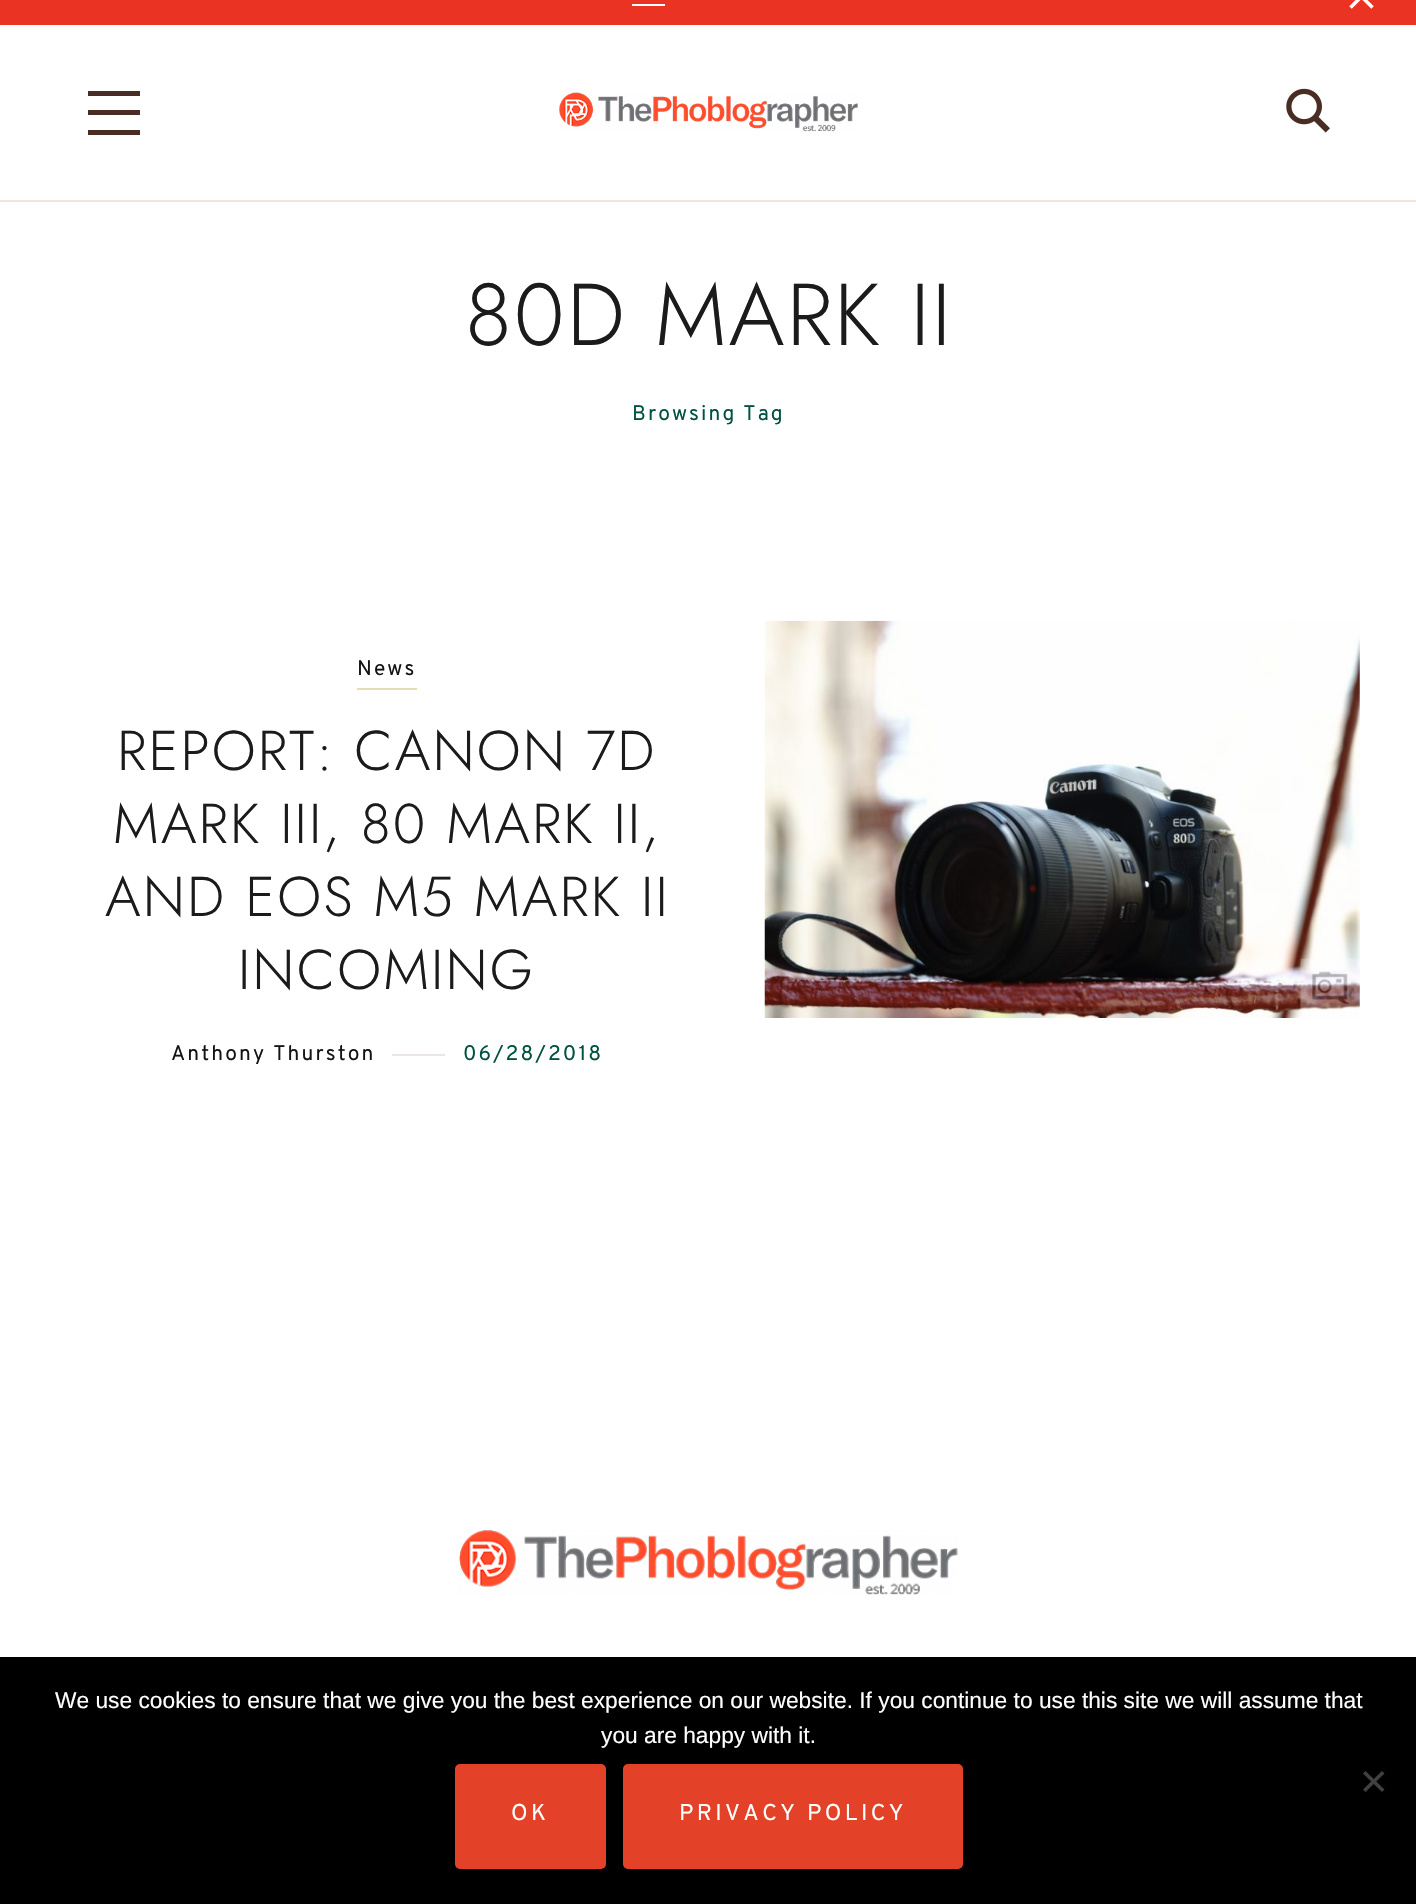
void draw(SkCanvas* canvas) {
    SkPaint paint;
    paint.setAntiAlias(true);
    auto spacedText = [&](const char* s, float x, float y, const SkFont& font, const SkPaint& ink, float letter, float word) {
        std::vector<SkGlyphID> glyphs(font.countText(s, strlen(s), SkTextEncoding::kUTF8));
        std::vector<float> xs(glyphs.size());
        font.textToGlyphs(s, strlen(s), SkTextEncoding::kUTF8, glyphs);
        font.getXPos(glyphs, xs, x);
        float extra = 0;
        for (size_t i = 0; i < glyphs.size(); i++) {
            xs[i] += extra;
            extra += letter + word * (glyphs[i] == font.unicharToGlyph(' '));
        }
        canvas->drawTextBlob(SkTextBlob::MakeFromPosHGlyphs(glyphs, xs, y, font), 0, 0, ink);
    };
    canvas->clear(0xFFFFFFFF);
    paint.setColor(0xFFEB3323);
    canvas->drawRect(SkRect::MakeXYWH(0, 0, 1416, 25), paint);
    paint.setColor(0xFFFFFFFF);
    canvas->drawRect(SkRect::MakeXYWH(632, 4, 33, 2), paint);
    canvas->drawImageRect(SkImages::DeferredFromEncodedData(SkData::MakeFromFileName("img1.png")), SkRect::MakeXYWH(1349, 0, 25, 9), SkSamplingOptions());
    paint.setColor(0xFFEEE6E2);
    canvas->drawRect(SkRect::MakeXYWH(0, 200, 1416, 2), paint);
    paint.setColor(0xFF492C23);
    canvas->drawRect(SkRect::MakeXYWH(88, 91, 52, 5), paint);
    canvas->drawRect(SkRect::MakeXYWH(88, 130, 52, 5), paint);
    canvas->drawRect(SkRect::MakeXYWH(88, 110, 52, 5), paint);
    canvas->drawImageRect(SkImages::DeferredFromEncodedData(SkData::MakeFromFileName("img2.png")), SkRect::MakeXYWH(559, 92, 299, 40), SkSamplingOptions());
    canvas->drawImageRect(SkImages::DeferredFromEncodedData(SkData::MakeFromFileName("img3.png")), SkRect::MakeXYWH(1286, 88, 44, 45), SkSamplingOptions());
    SkFont font1(fontMgr->matchFamilyStyle("Jost", SkFontStyle(300, SkFontStyle::kNormal_Width, SkFontStyle::kUpright_Slant)), 87.5f);
    font1.setSubpixel(true);
    paint.setColor(0xFF1B1B1B);
    spacedText("80D MARK II", 465, 345, font1, paint, 2.1f, 0);
    SkFont font2(fontMgr->matchFamilyStyle("Overpass", SkFontStyle::Normal()), 21);
    font2.setSubpixel(true);
    paint.setColor(0xFF005240);
    spacedText("Browsing Tag", 632, 420, font2, paint, 2.1f, 0);
    paint.setColor(0xFFE5DDB3);
    canvas->drawRect(SkRect::MakeXYWH(357, 688, 60, 2), paint);
    paint.setColor(0xFF121416);
    spacedText("News", 357, 675, font2, paint, 2.1f, 0);
    SkFont font3(fontMgr->matchFamilyStyle("Jost", SkFontStyle(300, SkFontStyle::kNormal_Width, SkFontStyle::kUpright_Slant)), 56);
    font3.setSubpixel(true);
    paint.setColor(0xFF1B1B1B);
    spacedText("REPORT: CANON 7D", 117, 770, font3, paint, 2.1f, 0);
    spacedText("MARK III, 80 MARK II,", 113, 843, font3, paint, 2.1f, 0);
    spacedText("AND EOS M5 MARK II", 105, 916, font3, paint, 2.1f, 0);
    spacedText("INCOMING", 238, 989, font3, paint, 2.1f, 0);
    paint.setColor(0xFF121416);
    spacedText("Anthony Thurston", 171, 1060, font2, paint, 2.1f, 0);
    paint.setColor(0xFFEEE6E2);
    canvas->drawRect(SkRect::MakeXYWH(392, 1054, 53, 2), paint);
    paint.setColor(0xFF005240);
    spacedText("06/28/2018", 463, 1060, font2, paint, 2.1f, 0);
    canvas->drawImageRect(SkImages::DeferredFromEncodedData(SkData::MakeFromFileName("img4.png")), SkRect::MakeXYWH(764, 620, 596, 398), SkSamplingOptions());
    canvas->drawImageRect(SkImages::DeferredFromEncodedData(SkData::MakeFromFileName("img5.png")), SkRect::MakeXYWH(458, 1530, 500, 65), SkSamplingOptions());
    paint.setColor(0xFF000000);
    canvas->drawRect(SkRect::MakeXYWH(0, 1657, 1416, 247), paint);
    SkFont font4(fontMgr->matchFamilyStyle("Liberation Sans", SkFontStyle::Normal()), 22.75f);
    font4.setSubpixel(true);
    paint.setColor(0xFFFFFFFF);
    canvas->drawString("We use cookies to ensure that we give you the best experience on our website. If you continue to use this site we will assume that", 55, 1708, font4, paint);
    canvas->drawString("you are happy with it.", 601, 1743, font4, paint);
    paint.setColor(0xFF404040);
    canvas->drawPath(SkPathBuilder().moveTo(1382, 1771).lineTo(1384.5f, 1773.5f).lineTo(1365.5f, 1792).lineTo(1363, 1789.5f).close().detach(), paint);
    canvas->drawPath(SkPathBuilder().moveTo(1363, 1773.5f).lineTo(1365.5f, 1771).lineTo(1384.5f, 1789.5f).lineTo(1382, 1792).close().detach(), paint);
    paint.setColor(0xFFE34228);
    canvas->drawRoundRect(SkRect::MakeXYWH(455, 1764, 151, 105), 5, 5, paint);
    SkFont font5(fontMgr->matchFamilyStyle("Overpass", SkFontStyle::Normal()), 22.75f);
    font5.setSubpixel(true);
    paint.setColor(0xFFFFFFFF);
    spacedText("OK", 511, 1820, font5, paint, 3.4f, 0);
    paint.setColor(0xFFE34228);
    canvas->drawRoundRect(SkRect::MakeXYWH(623, 1764, 340, 105), 5, 5, paint);
    paint.setColor(0xFFFFFFFF);
    spacedText("PRIVACY POLICY", 679, 1820, font5, paint, 3.4f, 0);
}
